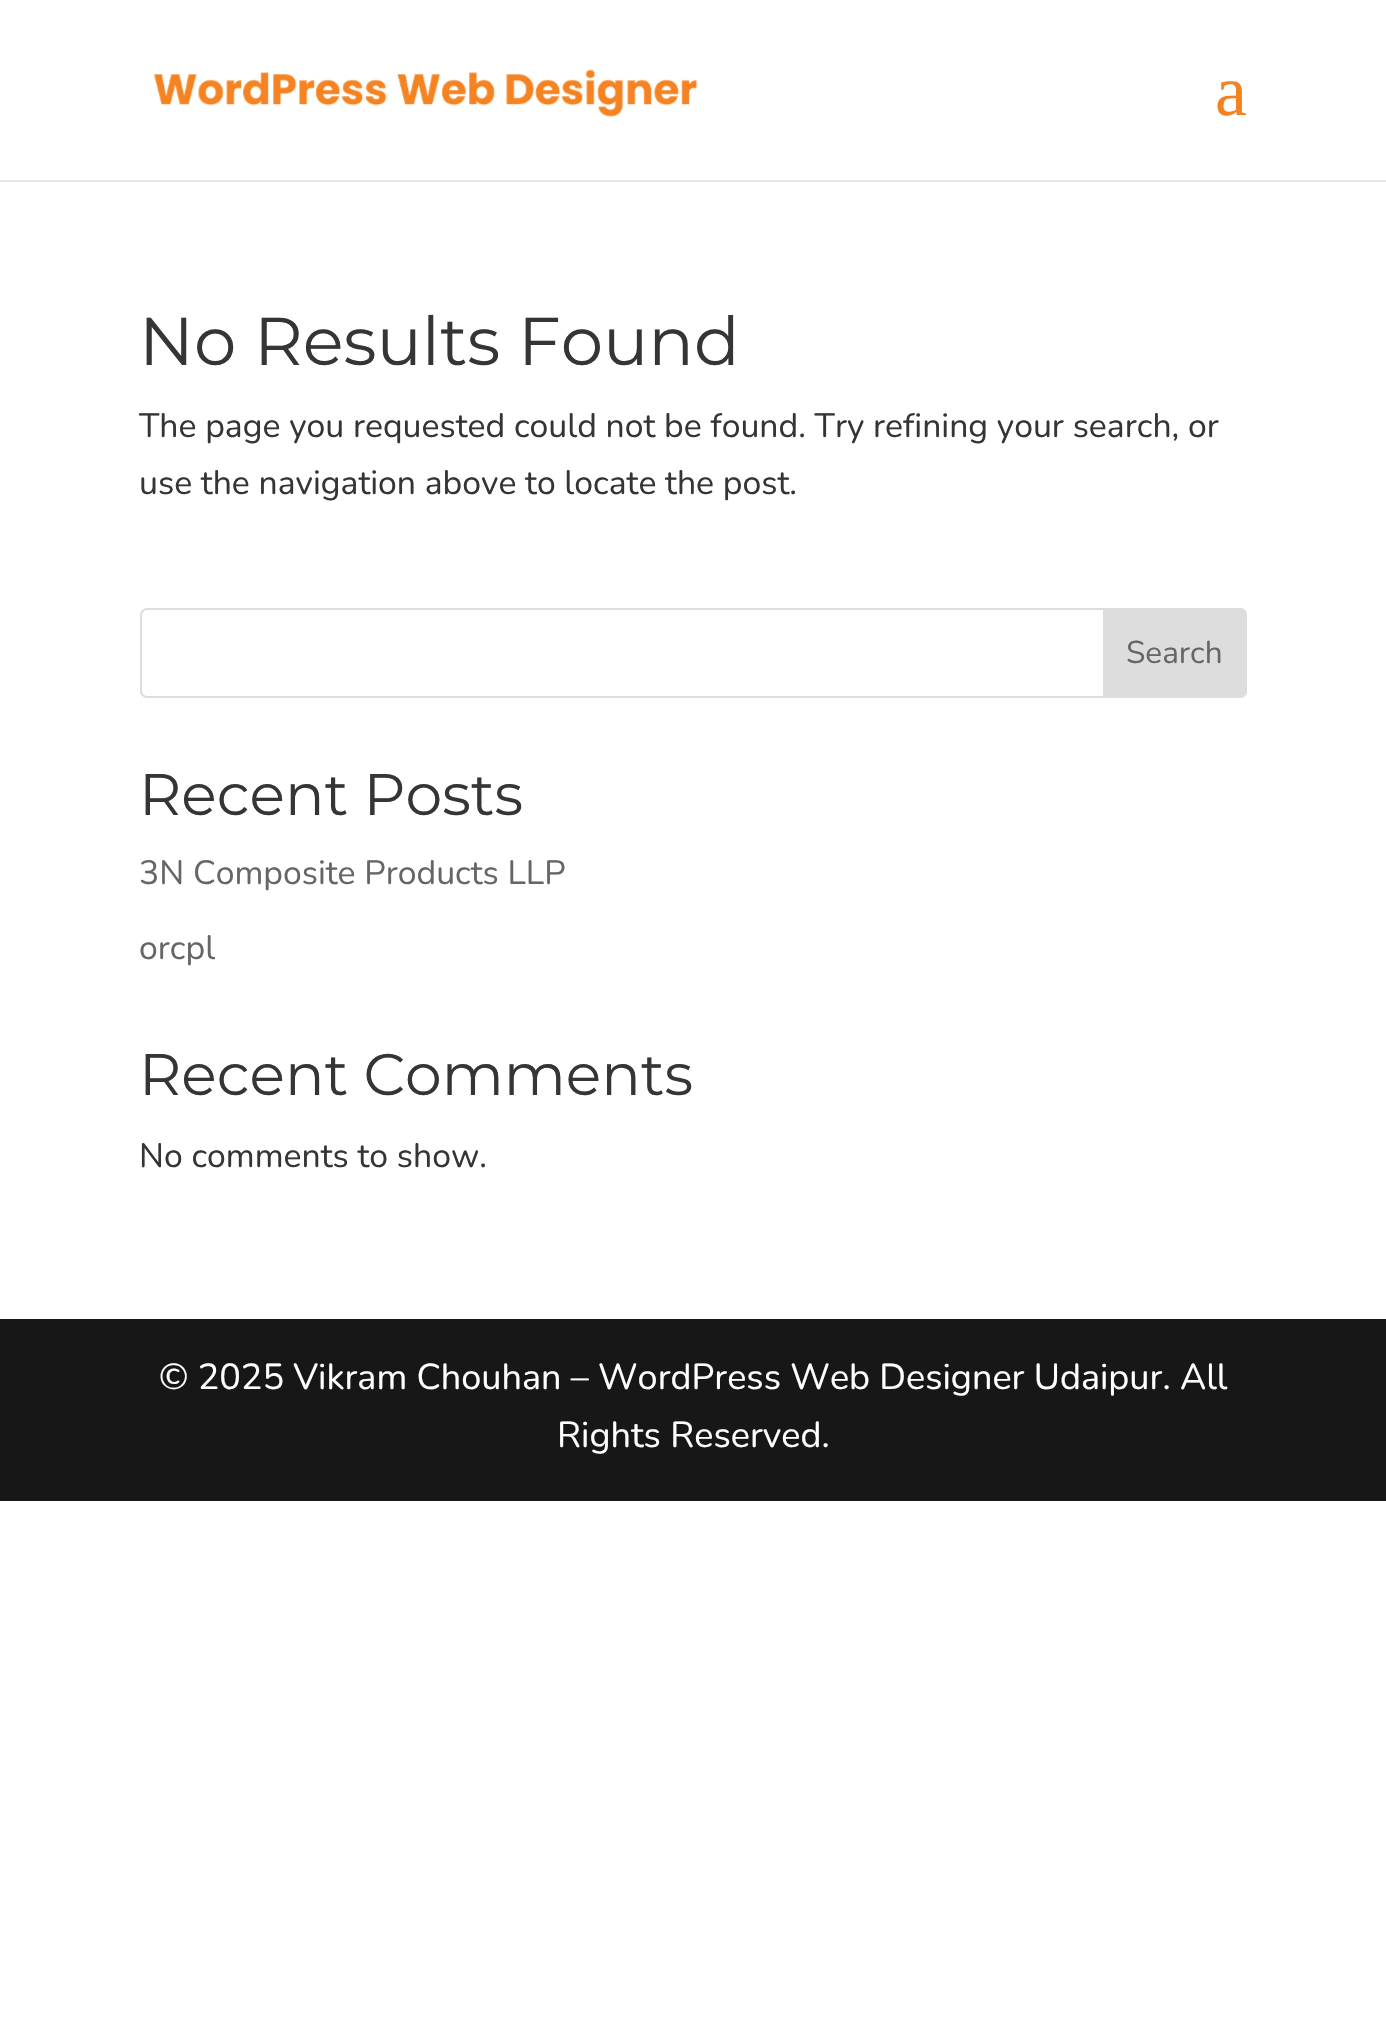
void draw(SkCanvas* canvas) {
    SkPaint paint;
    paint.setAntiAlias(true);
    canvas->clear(0xFFFFFFFF);
    paint.setColor(0xFFE6E6E6);
    canvas->drawRect(SkRect::MakeXYWH(0, 180, 1386, 2), paint);
    canvas->drawImageRect(SkImages::DeferredFromEncodedData(SkData::MakeFromFileName("img1.png")), SkRect::MakeXYWH(154, 69, 544, 48), SkSamplingOptions());
    SkFont font1(fontMgr->matchFamilyStyle("Liberation Serif", SkFontStyle::Normal()), 72);
    font1.setSubpixel(true);
    paint.setColor(0xFFF58220);
    canvas->drawString("a", 1215, 115, font1, paint);
    SkFont font2(fontMgr->matchFamilyStyle("Montserrat", SkFontStyle::Normal()), 67.5f);
    font2.setSubpixel(true);
    paint.setColor(0xFF353535);
    canvas->drawString("No Results Found", 139, 365, font2, paint);
    SkFont font3(fontMgr->matchFamilyStyle("Nunito", SkFontStyle::Normal()), 33.75f);
    font3.setSubpixel(true);
    canvas->drawString("The page you requested could not be found. Try refining your search, or", 139, 437, font3, paint);
    canvas->drawString("use the navigation above to locate the post.", 139, 494, font3, paint);
    paint.setStyle(SkPaint::kStroke_Style);
    paint.setStrokeWidth(2);
    paint.setColor(0xFFDDDDDD);
    canvas->drawRoundRect(SkRect::MakeXYWH(141, 609, 1105, 88), 6, 6, paint);
    paint.setStyle(SkPaint::kFill_Style);
    canvas->drawPath(SkPathBuilder().moveTo(1104, 609).lineTo(1240, 609).cubicTo(1243.5f, 609, 1246, 611.5f, 1246, 615).lineTo(1246, 691).cubicTo(1246, 694.5f, 1243.5f, 697, 1240, 697).lineTo(1104, 697).close().detach(), paint);
    paint.setStyle(SkPaint::kStroke_Style);
    canvas->drawPath(SkPathBuilder().moveTo(1104, 609).lineTo(1240, 609).cubicTo(1243.5f, 609, 1246, 611.5f, 1246, 615).lineTo(1246, 691).cubicTo(1246, 694.5f, 1243.5f, 697, 1240, 697).lineTo(1104, 697).close().detach(), paint);
    SkFont font4(fontMgr->matchFamilyStyle("Nunito", SkFontStyle::Normal()), 31.5f);
    font4.setSubpixel(true);
    paint.setStyle(SkPaint::kFill_Style);
    paint.setColor(0xFF666666);
    canvas->drawString("Search", 1126, 663, font4, paint);
    SkFont font5(fontMgr->matchFamilyStyle("Montserrat", SkFontStyle::Normal()), 58.5f);
    font5.setSubpixel(true);
    paint.setColor(0xFF353535);
    canvas->drawString("Recent Posts", 139, 815, font5, paint);
    paint.setColor(0xFF666666);
    canvas->drawString("3N Composite Products LLP", 139, 884, font3, paint);
    canvas->drawString("orcpl", 139, 959, font3, paint);
    paint.setColor(0xFF353535);
    canvas->drawString("Recent Comments", 139, 1095, font5, paint);
    canvas->drawString("No comments to show.", 139, 1167, font3, paint);
    paint.setColor(0xFF171717);
    canvas->drawRect(SkRect::MakeXYWH(0, 1319, 1386, 182), paint);
    SkFont font6(fontMgr->matchFamilyStyle("Nunito", SkFontStyle::Normal()), 36);
    font6.setSubpixel(true);
    paint.setColor(0xFFFFFFFF);
    canvas->drawString("© 2025 Vikram Chouhan – WordPress Web Designer Udaipur. All", 159, 1389, font6, paint);
    canvas->drawString("Rights Reserved.", 557, 1447, font6, paint);
}
